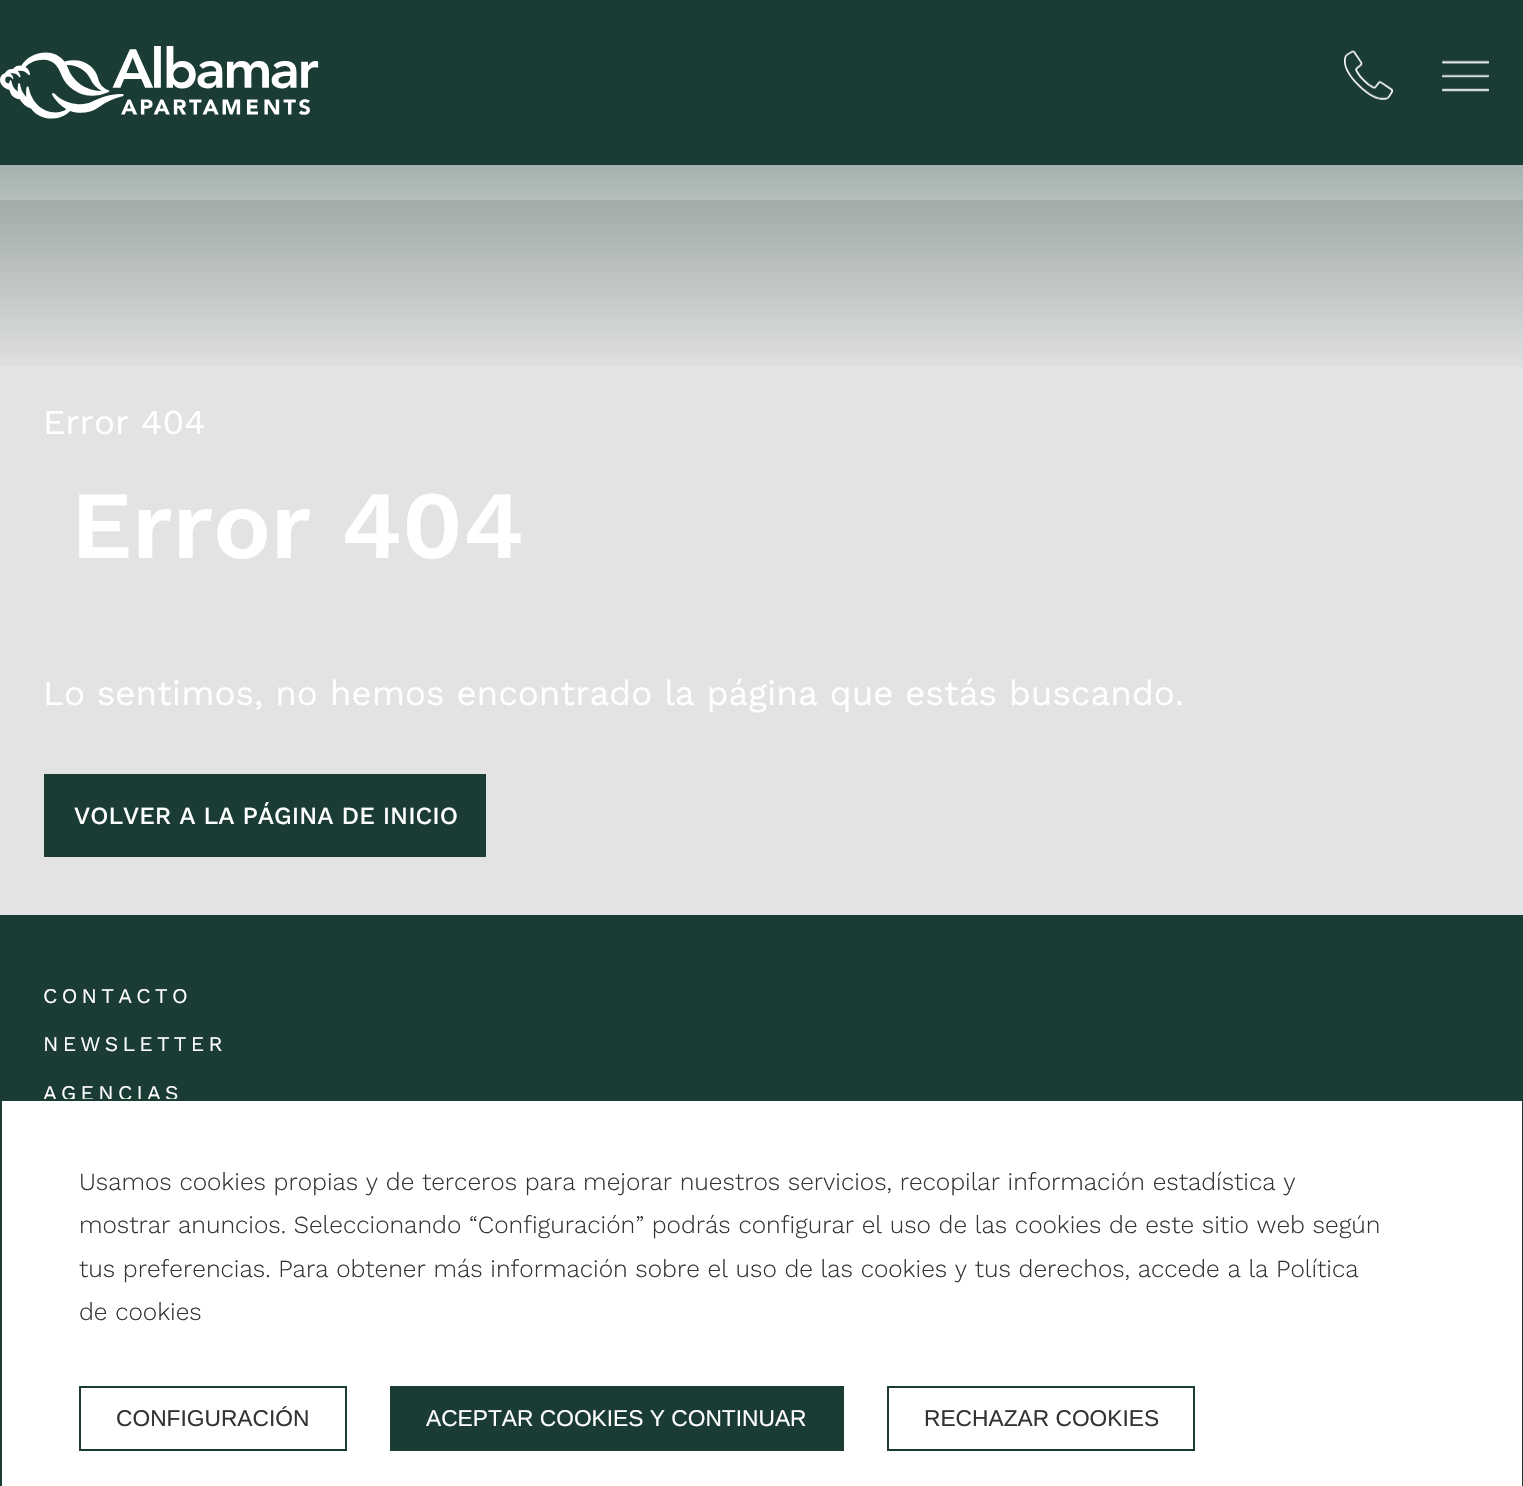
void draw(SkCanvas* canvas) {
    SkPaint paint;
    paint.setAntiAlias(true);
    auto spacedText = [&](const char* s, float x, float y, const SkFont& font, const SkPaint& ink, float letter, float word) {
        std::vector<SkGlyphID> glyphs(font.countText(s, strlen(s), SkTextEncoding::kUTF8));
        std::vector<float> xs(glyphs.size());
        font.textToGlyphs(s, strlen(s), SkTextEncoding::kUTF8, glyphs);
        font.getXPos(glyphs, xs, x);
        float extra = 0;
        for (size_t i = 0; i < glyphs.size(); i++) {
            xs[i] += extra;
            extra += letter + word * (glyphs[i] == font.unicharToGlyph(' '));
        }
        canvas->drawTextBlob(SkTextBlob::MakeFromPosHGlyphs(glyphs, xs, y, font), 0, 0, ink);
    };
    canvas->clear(0xFFFFFFFF);
    paint.setColor(0xFF1A3C34);
    canvas->drawRect(SkRect::MakeXYWH(0, 0, 1523, 165), paint);
    canvas->drawImageRect(SkImages::DeferredFromEncodedData(SkData::MakeFromFileName("img1.png")), SkRect::MakeXYWH(0, 46, 319, 73), SkSamplingOptions());
    canvas->drawImageRect(SkImages::DeferredFromEncodedData(SkData::MakeFromFileName("img2.png")), SkRect::MakeXYWH(1344, 50, 49, 50), SkSamplingOptions());
    canvas->drawImageRect(SkImages::DeferredFromEncodedData(SkData::MakeFromFileName("img3.png")), SkRect::MakeXYWH(1442, 60, 47, 32), SkSamplingOptions());
    paint.setColor(0xFFE3E3E3);
    canvas->drawRect(SkRect::MakeXYWH(0, 200, 1523, 715), paint);
    {
        const SkColor colors[] = {0xB31A3C34, 0x001A3C34};
        const float stops[] = {0, 1};
        const SkPoint ends[] = {{762, 0}, {762, 378}};
        paint.setShader(SkGradientShader::MakeLinear(ends, colors, stops, 2, SkTileMode::kClamp));
        paint.setAlpha(255);
    }
    canvas->drawRect(SkRect::MakeXYWH(0, 165, 1523, 201), paint);
    SkFont font1(fontMgr->matchFamilyStyle("Work Sans", SkFontStyle::Normal()), 35);
    font1.setSubpixel(true);
    paint.setShader(nullptr);
    paint.setColor(0xFFFFFFFF);
    canvas->drawString("Error 404", 43, 434, font1, paint);
    SkFont font2(fontMgr->matchFamilyStyle("Work Sans", SkFontStyle(600, SkFontStyle::kNormal_Width, SkFontStyle::kUpright_Slant)), 96.25f);
    font2.setSubpixel(true);
    canvas->drawString("Error 404", 71, 558, font2, paint);
    canvas->drawString("Lo sentimos, no hemos encontrado la página que estás buscando.", 43, 705, font1, paint);
    paint.setColor(0xFF1A3C34);
    canvas->drawRoundRect(SkRect::MakeXYWH(43, 773, 444, 85), 1, 1, paint);
    paint.setStyle(SkPaint::kStroke_Style);
    paint.setStrokeWidth(2);
    paint.setColor(0xFFE3E3E3);
    canvas->drawRoundRect(SkRect::MakeXYWH(43, 773, 444, 85), 1, 1, paint);
    SkFont font3(fontMgr->matchFamilyStyle("Work Sans", SkFontStyle(500, SkFontStyle::kNormal_Width, SkFontStyle::kUpright_Slant)), 24.5f);
    font3.setSubpixel(true);
    paint.setStyle(SkPaint::kFill_Style);
    paint.setColor(0xFFFFFFFF);
    canvas->drawString("VOLVER A LA PÁGINA DE INICIO", 74, 824, font3, paint);
    paint.setColor(0xFF1A3C34);
    canvas->drawRect(SkRect::MakeXYWH(0, 915, 1523, 184), paint);
    SkFont font4(fontMgr->matchFamilyStyle("Work Sans", SkFontStyle::Normal()), 21);
    font4.setSubpixel(true);
    paint.setColor(0xFFFFFFFF);
    spacedText("CONTACTO", 43, 1003, font4, paint, 4.25f, 0);
    spacedText("NEWSLETTER", 43, 1051, font4, paint, 4.25f, 0);
    spacedText("AGENCIAS", 43, 1100, font4, paint, 4.25f, 0);
    paint.setStyle(SkPaint::kStroke_Style);
    paint.setColor(0xFF1A3C34);
    canvas->drawRect(SkRect::MakeXYWH(1, 1100, 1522, 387), paint);
    SkFont font5(fontMgr->matchFamilyStyle("Work Sans", SkFontStyle(300, SkFontStyle::kNormal_Width, SkFontStyle::kUpright_Slant)), 24.5f);
    font5.setSubpixel(true);
    paint.setStyle(SkPaint::kFill_Style);
    paint.setColor(0xFF333333);
    canvas->drawString("Usamos cookies propias y de terceros para mejorar nuestros servicios, recopilar información estadística y", 79, 1190, font5, paint);
    canvas->drawString("mostrar anuncios. Seleccionando “Configuración” podrás configurar el uso de las cookies de este sitio web según", 79, 1233, font5, paint);
    canvas->drawString("tus preferencias. Para obtener más información sobre el uso de las cookies y tus derechos, accede a la Política", 79, 1277, font5, paint);
    canvas->drawString("de cookies", 79, 1320, font5, paint);
    paint.setStyle(SkPaint::kStroke_Style);
    paint.setColor(0xFF1A3C34);
    canvas->drawRect(SkRect::MakeXYWH(80, 1387, 266, 63), paint);
    SkFont font6(fontMgr->matchFamilyStyle("Liberation Sans", SkFontStyle::Normal()), 22.75f);
    font6.setSubpixel(true);
    paint.setStyle(SkPaint::kFill_Style);
    paint.setColor(0xFF333333);
    canvas->drawString("CONFIGURACIÓN", 116, 1426, font6, paint);
    paint.setColor(0xFF1A3C34);
    canvas->drawRect(SkRect::MakeXYWH(390, 1386, 454, 65), paint);
    paint.setColor(0xFFFFFFFF);
    canvas->drawString("ACEPTAR COOKIES Y CONTINUAR", 426, 1426, font6, paint);
    paint.setStyle(SkPaint::kStroke_Style);
    paint.setColor(0xFF1A3C34);
    canvas->drawRect(SkRect::MakeXYWH(888, 1387, 306, 63), paint);
    paint.setStyle(SkPaint::kFill_Style);
    paint.setColor(0xFF333333);
    canvas->drawString("RECHAZAR COOKIES", 924, 1426, font6, paint);
}
